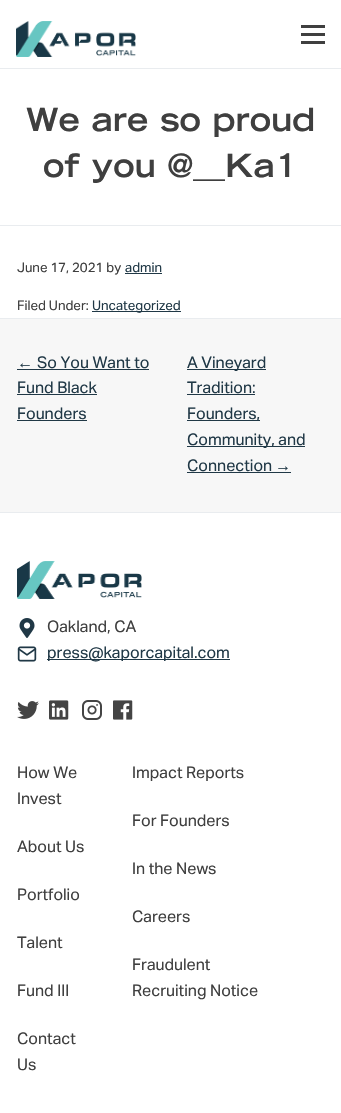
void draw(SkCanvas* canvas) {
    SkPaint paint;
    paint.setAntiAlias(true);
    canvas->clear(0xFFFFFFFF);
    paint.setColor(0xFFE9ECEF);
    canvas->drawRect(SkRect::MakeXYWH(0, 68, 341, 1), paint);
    canvas->drawImageRect(SkImages::DeferredFromEncodedData(SkData::MakeFromFileName("img1.png")), SkRect::MakeXYWH(16, 21, 120, 36), SkSamplingOptions());
    paint.setColor(0xFF3F3F3F);
    canvas->drawRect(SkRect::MakeXYWH(301, 33, 24, 3), paint);
    canvas->drawRect(SkRect::MakeXYWH(301, 25, 24, 3), paint);
    canvas->drawRect(SkRect::MakeXYWH(301, 41, 24, 3), paint);
    paint.setColor(0xFFE9ECEF);
    canvas->drawRect(SkRect::MakeXYWH(0, 225, 341, 1), paint);
    SkFont font1(fontMgr->matchFamilyStyle("Trade Gothic", SkFontStyle::Bold()), 32);
    font1.setSubpixel(true);
    paint.setColor(0xFF3F3F3F);
    canvas->drawString("We are so proud", 26, 131, font1, paint);
    canvas->drawString("of you @__Ka1", 43, 177, font1, paint);
    SkFont font2(fontMgr->matchFamilyStyle("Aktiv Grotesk", SkFontStyle::Normal()), 13.25f);
    font2.setSubpixel(true);
    canvas->drawString("June 17, 2021 by", 17, 272, font2, paint);
    paint.setColor(0xFF203846);
    canvas->drawString("admin", 125, 272, font2, paint);
    canvas->drawRect(SkRect::MakeXYWH(125, 273, 37, 1), paint);
    paint.setColor(0xFF3F3F3F);
    canvas->drawString("Filed Under:", 17, 310, font2, paint);
    paint.setColor(0xFF203846);
    canvas->drawRect(SkRect::MakeXYWH(92, 311, 89, 1), paint);
    canvas->drawString("Uncategorized", 92, 310, font2, paint);
    paint.setColor(0xFFF7F7F7);
    canvas->drawRect(SkRect::MakeXYWH(0, 319, 341, 193), paint);
    paint.setColor(0xFFE9ECEF);
    canvas->drawRect(SkRect::MakeXYWH(0, 318, 341, 1), paint);
    SkFont font3(fontMgr->matchFamilyStyle("Liberation Serif", SkFontStyle::Normal()), 16);
    font3.setSubpixel(true);
    paint.setColor(0xFF203846);
    canvas->drawString("←", 17, 368, font3, paint);
    canvas->drawRect(SkRect::MakeXYWH(17, 369, 132, 1), paint);
    SkFont font4(fontMgr->matchFamilyStyle("Aktiv Grotesk", SkFontStyle::Normal()), 16);
    font4.setSubpixel(true);
    canvas->drawString("So You Want to", 37, 368, font4, paint);
    canvas->drawString("Fund Black", 17, 393, font4, paint);
    canvas->drawRect(SkRect::MakeXYWH(17, 394, 80, 1), paint);
    canvas->drawString("Founders", 17, 419, font4, paint);
    canvas->drawRect(SkRect::MakeXYWH(17, 420, 70, 1), paint);
    canvas->drawRect(SkRect::MakeXYWH(187, 369, 79, 1), paint);
    canvas->drawString("A Vineyard", 187, 368, font4, paint);
    canvas->drawString("Tradition:", 187, 393, font4, paint);
    canvas->drawRect(SkRect::MakeXYWH(187, 394, 68, 1), paint);
    canvas->drawRect(SkRect::MakeXYWH(187, 420, 73, 1), paint);
    canvas->drawString("Founders,", 187, 419, font4, paint);
    canvas->drawRect(SkRect::MakeXYWH(187, 446, 118, 1), paint);
    canvas->drawString("Community, and", 187, 445, font4, paint);
    canvas->drawString("Connection", 187, 471, font4, paint);
    canvas->drawString("→", 275, 471, font3, paint);
    canvas->drawRect(SkRect::MakeXYWH(187, 472, 104, 1), paint);
    paint.setColor(0xFFE9ECEF);
    canvas->drawRect(SkRect::MakeXYWH(0, 512, 341, 1), paint);
    canvas->drawImageRect(SkImages::DeferredFromEncodedData(SkData::MakeFromFileName("img2.png")), SkRect::MakeXYWH(17, 561, 125, 38), SkSamplingOptions());
    canvas->drawImageRect(SkImages::DeferredFromEncodedData(SkData::MakeFromFileName("img3.png")), SkRect::MakeXYWH(19, 618, 16, 20), SkSamplingOptions());
    paint.setColor(0xFF3F3F3F);
    canvas->drawString("Oakland, CA", 47, 632, font4, paint);
    canvas->drawImageRect(SkImages::DeferredFromEncodedData(SkData::MakeFromFileName("img4.png")), SkRect::MakeXYWH(17, 646, 20, 16), SkSamplingOptions());
    paint.setColor(0xFF203846);
    canvas->drawRect(SkRect::MakeXYWH(47, 659, 183, 1), paint);
    canvas->drawString("press@kaporcapital.com", 47, 658, font4, paint);
    canvas->drawImageRect(SkImages::DeferredFromEncodedData(SkData::MakeFromFileName("img5.png")), SkRect::MakeXYWH(17, 701, 22, 18), SkSamplingOptions());
    canvas->drawImageRect(SkImages::DeferredFromEncodedData(SkData::MakeFromFileName("img6.png")), SkRect::MakeXYWH(49, 700, 20, 20), SkSamplingOptions());
    canvas->drawImageRect(SkImages::DeferredFromEncodedData(SkData::MakeFromFileName("img7.png")), SkRect::MakeXYWH(82, 700, 20, 20), SkSamplingOptions());
    canvas->drawImageRect(SkImages::DeferredFromEncodedData(SkData::MakeFromFileName("img8.png")), SkRect::MakeXYWH(113, 700, 20, 20), SkSamplingOptions());
    paint.setColor(0xFF3F3F3F);
    canvas->drawString("How We", 17, 778, font4, paint);
    canvas->drawString("Invest", 17, 804, font4, paint);
    canvas->drawString("About Us", 17, 852, font4, paint);
    canvas->drawString("Portfolio", 17, 900, font4, paint);
    canvas->drawString("Talent", 17, 948, font4, paint);
    canvas->drawString("Fund III", 17, 996, font4, paint);
    canvas->drawString("Contact", 17, 1044, font4, paint);
    canvas->drawString("Us", 17, 1070, font4, paint);
    canvas->drawString("Impact Reports", 132, 778, font4, paint);
    canvas->drawString("For Founders", 132, 826, font4, paint);
    canvas->drawString("In the News", 132, 874, font4, paint);
    canvas->drawString("Careers", 132, 922, font4, paint);
    canvas->drawString("Fraudulent", 132, 970, font4, paint);
    canvas->drawString("Recruiting Notice", 132, 996, font4, paint);
}
